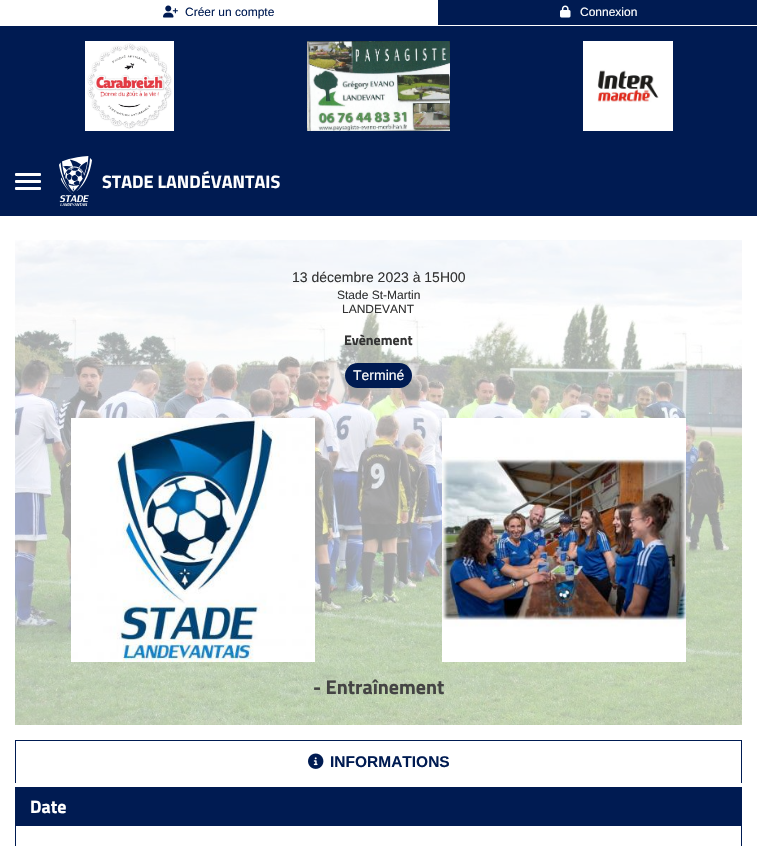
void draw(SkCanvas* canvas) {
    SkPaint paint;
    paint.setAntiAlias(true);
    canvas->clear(0xFFFFFFFF);
    paint.setColor(0xFF001B52);
    canvas->drawRect(SkRect::MakeXYWH(0, 0, 757, 216), paint);
    paint.setColor(0xFFFFFFFF);
    canvas->drawRect(SkRect::MakeXYWH(0, 0, 438, 26), paint);
    canvas->drawImageRect(SkImages::DeferredFromEncodedData(SkData::MakeFromFileName("img1.png")), SkRect::MakeXYWH(163, 5, 15, 13), SkSamplingOptions());
    SkFont font1(fontMgr->matchFamilyStyle("Liberation Sans", SkFontStyle::Normal()), 12);
    font1.setSubpixel(true);
    paint.setColor(0xFF001B52);
    canvas->drawString("Créer un compte", 185, 16, font1, paint);
    paint.setColor(0xFFFFFFFF);
    canvas->drawRect(SkRect::MakeXYWH(438, 25, 319, 1), paint);
    canvas->drawImageRect(SkImages::DeferredFromEncodedData(SkData::MakeFromFileName("img2.png")), SkRect::MakeXYWH(560, 5, 11, 13), SkSamplingOptions());
    canvas->drawString("Connexion", 580, 16, font1, paint);
    canvas->drawRoundRect(SkRect::MakeXYWH(15, 173, 26, 3), 1, 1, paint);
    canvas->drawRoundRect(SkRect::MakeXYWH(15, 180, 26, 3), 1, 1, paint);
    canvas->drawRoundRect(SkRect::MakeXYWH(15, 187, 26, 3), 1, 1, paint);
    canvas->drawImageRect(SkImages::DeferredFromEncodedData(SkData::MakeFromFileName("img3.png")), SkRect::MakeXYWH(59, 156, 33, 50), SkSamplingOptions());
    SkFont font2(fontMgr->matchFamilyStyle("Titillium Web", SkFontStyle::Bold()), 18);
    font2.setSubpixel(true);
    canvas->drawString("STADE LANDÉVANTAIS", 102, 188, font2, paint);
    canvas->drawImageRect(SkImages::DeferredFromEncodedData(SkData::MakeFromFileName("img4.png")), SkRect::MakeXYWH(85, 41, 89, 90), SkSamplingOptions());
    canvas->drawImageRect(SkImages::DeferredFromEncodedData(SkData::MakeFromFileName("img5.png")), SkRect::MakeXYWH(307, 41, 143, 90), SkSamplingOptions());
    canvas->drawImageRect(SkImages::DeferredFromEncodedData(SkData::MakeFromFileName("img6.png")), SkRect::MakeXYWH(583, 41, 90, 90), SkSamplingOptions());
    canvas->drawImageRect(SkImages::DeferredFromEncodedData(SkData::MakeFromFileName("img7.png")), SkRect::MakeXYWH(15, 240, 727, 485), SkSamplingOptions());
    SkFont font3(fontMgr->matchFamilyStyle("Liberation Sans", SkFontStyle::Normal()), 14);
    font3.setSubpixel(true);
    paint.setColor(0xFF333333);
    canvas->drawString("13 décembre 2023 à 15H00", 292, 282, font3, paint);
    canvas->drawString("Stade St-Martin", 337, 299, font1, paint);
    canvas->drawString("LANDEVANT", 342, 313, font1, paint);
    SkFont font4(fontMgr->matchFamilyStyle("Titillium Web", SkFontStyle::Bold()), 14);
    font4.setSubpixel(true);
    canvas->drawString("Evènement", 344, 345, font4, paint);
    paint.setColor(0xFF001B52);
    canvas->drawRoundRect(SkRect::MakeXYWH(345, 363, 67, 25), 12.5f, 12.5f, paint);
    paint.setColor(0xFFFFFFFF);
    canvas->drawString("Terminé", 353, 380, font3, paint);
    canvas->drawImageRect(SkImages::DeferredFromEncodedData(SkData::MakeFromFileName("img8.png")), SkRect::MakeXYWH(71, 418, 244, 244), SkSamplingOptions());
    canvas->drawImageRect(SkImages::DeferredFromEncodedData(SkData::MakeFromFileName("img9.png")), SkRect::MakeXYWH(442, 418, 244, 244), SkSamplingOptions());
    SkFont font5(fontMgr->matchFamilyStyle("Titillium Web", SkFontStyle::Bold()), 20);
    font5.setSubpixel(true);
    paint.setColor(0xFF444444);
    canvas->drawString("- Entraînement", 313, 694, font5, paint);
    paint.setColor(0xFF001B52);
    canvas->drawRect(SkRect::MakeXYWH(15, 787, 727, 39), paint);
    canvas->drawRect(SkRect::MakeXYWH(15, 740, 727, 1), paint);
    canvas->drawRect(SkRect::MakeXYWH(741, 740, 1, 43), paint);
    canvas->drawRect(SkRect::MakeXYWH(15, 740, 1, 43), paint);
    canvas->drawImageRect(SkImages::DeferredFromEncodedData(SkData::MakeFromFileName("img10.png")), SkRect::MakeXYWH(308, 753, 16, 16), SkSamplingOptions());
    SkFont font6(fontMgr->matchFamilyStyle("Liberation Sans", SkFontStyle::Bold()), 15.5f);
    font6.setSubpixel(true);
    canvas->drawString("INFORMATIONS", 330, 767, font6, paint);
    paint.setColor(0xFFFFFFFF);
    canvas->drawString("Date", 30, 813, font2, paint);
    paint.setColor(0xFF001B52);
    canvas->drawRect(SkRect::MakeXYWH(741, 826, 1, 20), paint);
    canvas->drawRect(SkRect::MakeXYWH(15, 826, 1, 20), paint);
}
